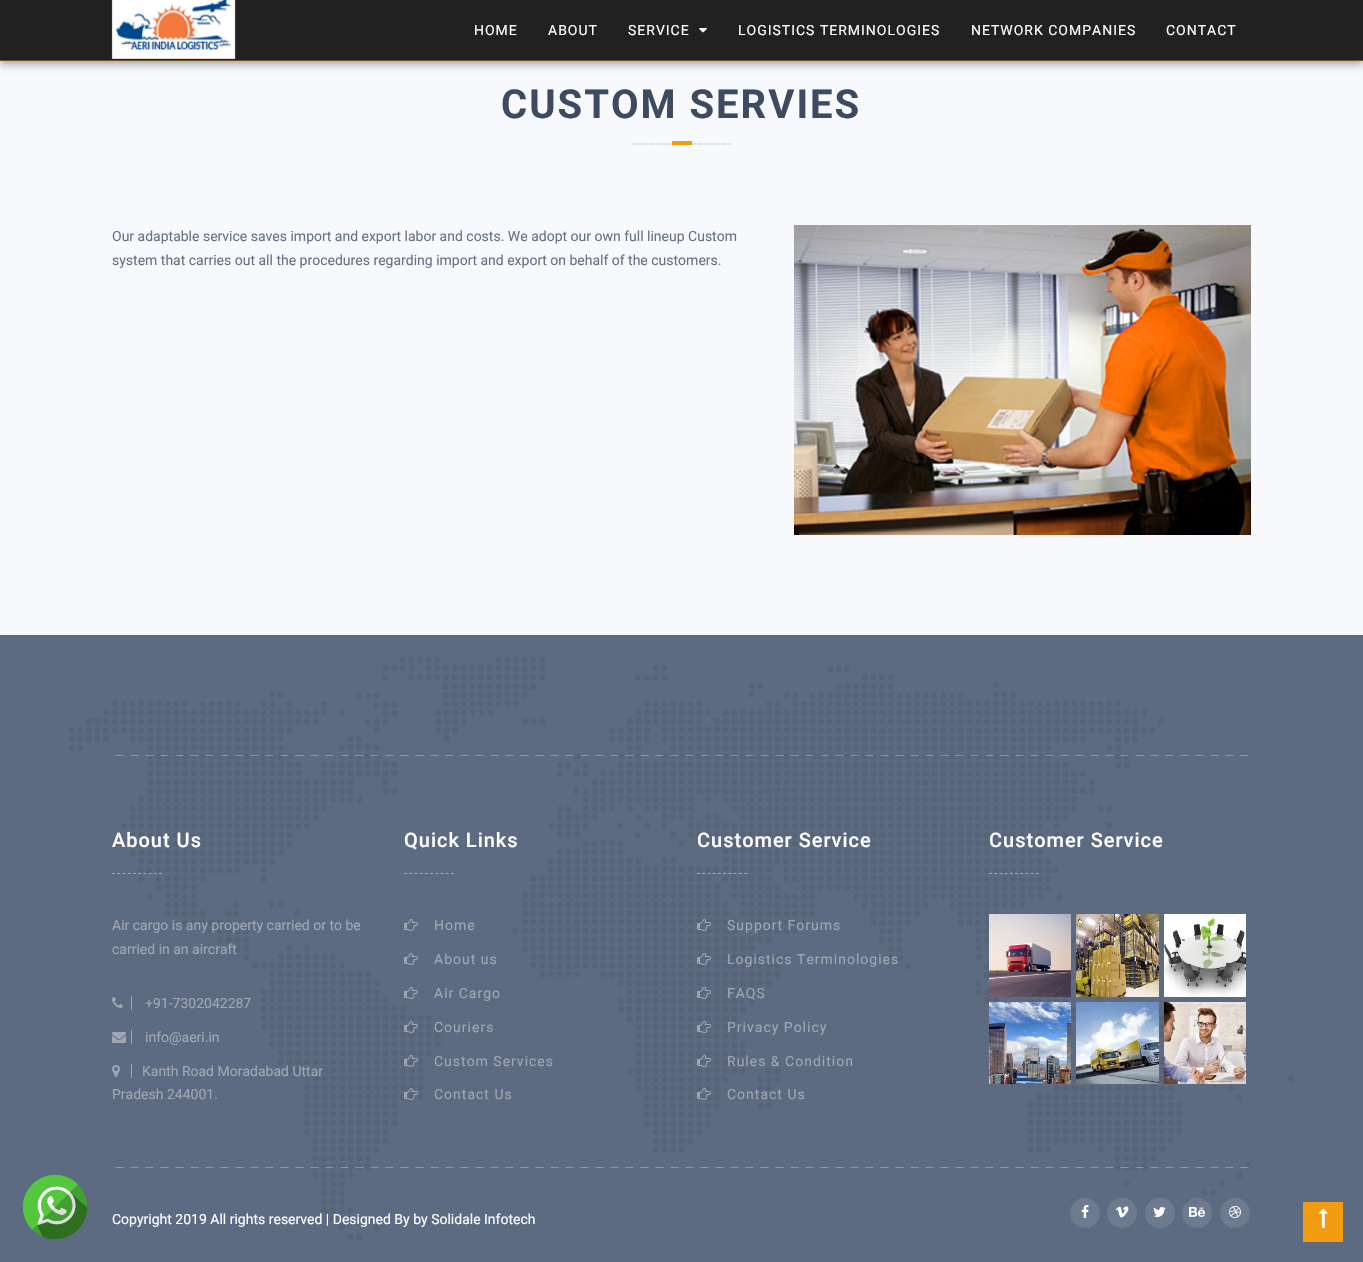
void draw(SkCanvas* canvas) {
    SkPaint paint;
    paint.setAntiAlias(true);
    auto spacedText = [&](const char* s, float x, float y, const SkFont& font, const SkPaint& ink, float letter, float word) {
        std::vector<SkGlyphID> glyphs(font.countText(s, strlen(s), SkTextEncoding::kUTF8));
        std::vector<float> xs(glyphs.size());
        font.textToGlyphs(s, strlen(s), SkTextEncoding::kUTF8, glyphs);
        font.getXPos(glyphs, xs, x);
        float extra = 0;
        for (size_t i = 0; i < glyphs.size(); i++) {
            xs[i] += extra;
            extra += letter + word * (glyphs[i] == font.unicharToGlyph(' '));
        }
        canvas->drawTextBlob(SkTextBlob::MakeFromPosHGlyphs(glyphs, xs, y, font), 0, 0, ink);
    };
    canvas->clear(0xFFF7F9FC);
    paint.setColor(0x47000000);
    paint.setMaskFilter(SkMaskFilter::MakeBlur(kNormal_SkBlurStyle, 4));
    canvas->drawRect(SkRect::MakeXYWH(0, 4, 1363, 61), paint);
    paint.setMaskFilter(nullptr);
    paint.setColor(0x24000000);
    paint.setMaskFilter(SkMaskFilter::MakeBlur(kNormal_SkBlurStyle, 2));
    canvas->drawRect(SkRect::MakeXYWH(0, 0, 1363, 61), paint);
    paint.setMaskFilter(nullptr);
    paint.setColor(0xFF212121);
    canvas->drawRect(SkRect::MakeXYWH(0, 0, 1363, 60), paint);
    paint.setColor(0xFF75521B);
    canvas->drawRect(SkRect::MakeXYWH(0, 60, 1363, 1), paint);
    canvas->drawImageRect(SkImages::DeferredFromEncodedData(SkData::MakeFromFileName("img1.png")), SkRect::MakeXYWH(111, 0, 125, 59), SkSamplingOptions());
    SkFont font1(fontMgr->matchFamilyStyle("Roboto", SkFontStyle::Normal()), 14);
    font1.setSubpixel(true);
    paint.setColor(0xFFFFFFFF);
    spacedText("HOME", 474, 35, font1, paint, 1, 0);
    spacedText("ABOUT", 548, 35, font1, paint, 1, 0);
    spacedText("SERVICE", 628, 35, font1, paint, 1, 0);
    canvas->drawImageRect(SkImages::DeferredFromEncodedData(SkData::MakeFromFileName("img2.png")), SkRect::MakeXYWH(699, 28, 8, 5), SkSamplingOptions());
    spacedText("LOGISTICS TERMINOLOGIES", 738, 35, font1, paint, 1, 0);
    spacedText("NETWORK COMPANIES", 971, 35, font1, paint, 1, 0);
    spacedText("CONTACT", 1166, 35, font1, paint, 1, 0);
    SkFont font2(fontMgr->matchFamilyStyle("Roboto", SkFontStyle::Bold()), 40);
    font2.setSubpixel(true);
    paint.setColor(0xFF3C4A62);
    spacedText("CUSTOM SERVIES", 501, 118, font2, paint, 2, 0);
    canvas->drawImageRect(SkImages::DeferredFromEncodedData(SkData::MakeFromFileName("img3.png")), SkRect::MakeXYWH(632, 143, 100, 2), SkSamplingOptions());
    paint.setColor(0xFFF39C12);
    canvas->drawRect(SkRect::MakeXYWH(672, 141, 20, 4), paint);
    paint.setColor(0xFF687284);
    canvas->drawString("Our adaptable service saves import and export labor and costs. We adopt our own full lineup Custom", 112, 241, font1, paint);
    canvas->drawString("system that carries out all the procedures regarding import and export on behalf of the customers.", 112, 265, font1, paint);
    canvas->drawImageRect(SkImages::DeferredFromEncodedData(SkData::MakeFromFileName("img4.png")), SkRect::MakeXYWH(794, 225, 457, 310), SkSamplingOptions());
    paint.setColor(0xFF5D6B82);
    canvas->drawRect(SkRect::MakeXYWH(0, 635, 1363, 627), paint);
    canvas->drawImageRect(SkImages::DeferredFromEncodedData(SkData::MakeFromFileName("img6.png")), SkRect::MakeXYWH(68, 657, 1226, 584), SkSamplingOptions());
    canvas->drawImageRect(SkImages::DeferredFromEncodedData(SkData::MakeFromFileName("img5.png")), SkRect::MakeXYWH(23, 1175, 65, 65), SkSamplingOptions());
    canvas->drawImageRect(SkImages::DeferredFromEncodedData(SkData::MakeFromFileName("img7.png")), SkRect::MakeXYWH(115, 755, 1134, 1), SkSamplingOptions());
    SkFont font3(fontMgr->matchFamilyStyle("Roboto", SkFontStyle(500, SkFontStyle::kNormal_Width, SkFontStyle::kUpright_Slant)), 20);
    font3.setSubpixel(true);
    paint.setColor(0xFFFFFFFF);
    spacedText("About Us", 112, 847, font3, paint, 1, 0);
    paint.setStyle(SkPaint::kStroke_Style);
    paint.setStrokeWidth(1);
    paint.setColor(0xFFF39C12);
    paint.setPathEffect(SkDashPathEffect::Make({{3, 2.22f}}, 0));
    canvas->drawPath(SkPathBuilder().moveTo(112, 873.5f).lineTo(162, 873.5f).detach(), paint);
    paint.setPathEffect(nullptr);
    paint.setStyle(SkPaint::kFill_Style);
    paint.setColor(0xFFA1A7B2);
    canvas->drawString("Air cargo is any property carried or to be", 112, 930, font1, paint);
    canvas->drawString("carried in an aircraft", 112, 954, font1, paint);
    canvas->drawRect(SkRect::MakeXYWH(131, 996, 1, 14), paint);
    canvas->drawImageRect(SkImages::DeferredFromEncodedData(SkData::MakeFromFileName("img8.png")), SkRect::MakeXYWH(112, 997, 11, 11), SkSamplingOptions());
    canvas->drawString("+91-7302042287", 145, 1008, font1, paint);
    canvas->drawRect(SkRect::MakeXYWH(131, 1030, 1, 14), paint);
    canvas->drawImageRect(SkImages::DeferredFromEncodedData(SkData::MakeFromFileName("img9.png")), SkRect::MakeXYWH(112, 1032, 14, 11), SkSamplingOptions());
    canvas->drawString("info@aeri.in", 145, 1042, font1, paint);
    canvas->drawRect(SkRect::MakeXYWH(131, 1064, 1, 14), paint);
    canvas->drawImageRect(SkImages::DeferredFromEncodedData(SkData::MakeFromFileName("img10.png")), SkRect::MakeXYWH(112, 1065, 8, 12), SkSamplingOptions());
    canvas->drawString("Kanth Road Moradabad Uttar", 142, 1076, font1, paint);
    canvas->drawString("Pradesh 244001.", 112, 1099, font1, paint);
    paint.setColor(0xFFFFFFFF);
    spacedText("Quick Links", 404, 847, font3, paint, 1, 0);
    paint.setStyle(SkPaint::kStroke_Style);
    paint.setColor(0xFFF39C12);
    paint.setPathEffect(SkDashPathEffect::Make({{3, 2.22f}}, 0));
    canvas->drawPath(SkPathBuilder().moveTo(404, 873.5f).lineTo(454, 873.5f).detach(), paint);
    paint.setPathEffect(nullptr);
    canvas->drawImageRect(SkImages::DeferredFromEncodedData(SkData::MakeFromFileName("img11.png")), SkRect::MakeXYWH(404, 919, 14, 12), SkSamplingOptions());
    paint.setStyle(SkPaint::kFill_Style);
    paint.setColor(0xFFA1A7B2);
    spacedText("Home", 434, 930, font1, paint, 1, 0);
    canvas->drawImageRect(SkImages::DeferredFromEncodedData(SkData::MakeFromFileName("img11.png")), SkRect::MakeXYWH(404, 953, 14, 12), SkSamplingOptions());
    spacedText("About us", 434, 964, font1, paint, 1, 0);
    canvas->drawImageRect(SkImages::DeferredFromEncodedData(SkData::MakeFromFileName("img11.png")), SkRect::MakeXYWH(404, 987, 14, 12), SkSamplingOptions());
    spacedText("Air Cargo", 434, 998, font1, paint, 1, 0);
    canvas->drawImageRect(SkImages::DeferredFromEncodedData(SkData::MakeFromFileName("img12.png")), SkRect::MakeXYWH(404, 1021, 14, 12), SkSamplingOptions());
    spacedText("Couriers", 434, 1032, font1, paint, 1, 0);
    canvas->drawImageRect(SkImages::DeferredFromEncodedData(SkData::MakeFromFileName("img13.png")), SkRect::MakeXYWH(404, 1055, 14, 12), SkSamplingOptions());
    spacedText("Custom Services", 434, 1066, font1, paint, 1, 0);
    canvas->drawImageRect(SkImages::DeferredFromEncodedData(SkData::MakeFromFileName("img14.png")), SkRect::MakeXYWH(404, 1088, 14, 12), SkSamplingOptions());
    spacedText("Contact Us", 434, 1099, font1, paint, 1, 0);
    paint.setColor(0xFFFFFFFF);
    spacedText("Customer Service", 697, 847, font3, paint, 1, 0);
    paint.setStyle(SkPaint::kStroke_Style);
    paint.setColor(0xFFF39C12);
    paint.setPathEffect(SkDashPathEffect::Make({{3, 2.22f}}, 0));
    canvas->drawPath(SkPathBuilder().moveTo(697, 873.5f).lineTo(747, 873.5f).detach(), paint);
    paint.setPathEffect(nullptr);
    canvas->drawImageRect(SkImages::DeferredFromEncodedData(SkData::MakeFromFileName("img15.png")), SkRect::MakeXYWH(697, 919, 14, 12), SkSamplingOptions());
    paint.setStyle(SkPaint::kFill_Style);
    paint.setColor(0xFFA1A7B2);
    spacedText("Support Forums", 727, 930, font1, paint, 1, 0);
    canvas->drawImageRect(SkImages::DeferredFromEncodedData(SkData::MakeFromFileName("img16.png")), SkRect::MakeXYWH(697, 953, 14, 12), SkSamplingOptions());
    spacedText("Logistics Terminologies", 727, 964, font1, paint, 1, 0);
    canvas->drawImageRect(SkImages::DeferredFromEncodedData(SkData::MakeFromFileName("img17.png")), SkRect::MakeXYWH(697, 987, 14, 12), SkSamplingOptions());
    spacedText("FAQS", 727, 998, font1, paint, 1, 0);
    canvas->drawImageRect(SkImages::DeferredFromEncodedData(SkData::MakeFromFileName("img18.png")), SkRect::MakeXYWH(697, 1021, 14, 12), SkSamplingOptions());
    spacedText("Privacy Policy", 727, 1032, font1, paint, 1, 0);
    canvas->drawImageRect(SkImages::DeferredFromEncodedData(SkData::MakeFromFileName("img19.png")), SkRect::MakeXYWH(697, 1055, 14, 12), SkSamplingOptions());
    spacedText("Rules & Condition", 727, 1066, font1, paint, 1, 0);
    canvas->drawImageRect(SkImages::DeferredFromEncodedData(SkData::MakeFromFileName("img20.png")), SkRect::MakeXYWH(697, 1088, 14, 12), SkSamplingOptions());
    spacedText("Contact Us", 727, 1099, font1, paint, 1, 0);
    paint.setColor(0xFFFFFFFF);
    spacedText("Customer Service", 989, 847, font3, paint, 1, 0);
    paint.setStyle(SkPaint::kStroke_Style);
    paint.setColor(0xFFF39C12);
    paint.setPathEffect(SkDashPathEffect::Make({{3, 2.22f}}, 0));
    canvas->drawPath(SkPathBuilder().moveTo(989, 873.5f).lineTo(1039, 873.5f).detach(), paint);
    paint.setPathEffect(nullptr);
    canvas->drawImageRect(SkImages::DeferredFromEncodedData(SkData::MakeFromFileName("img21.png")), SkRect::MakeXYWH(989, 914, 82, 83), SkSamplingOptions());
    canvas->drawImageRect(SkImages::DeferredFromEncodedData(SkData::MakeFromFileName("img22.png")), SkRect::MakeXYWH(1076, 914, 83, 83), SkSamplingOptions());
    canvas->drawImageRect(SkImages::DeferredFromEncodedData(SkData::MakeFromFileName("img23.png")), SkRect::MakeXYWH(1164, 914, 82, 83), SkSamplingOptions());
    canvas->drawImageRect(SkImages::DeferredFromEncodedData(SkData::MakeFromFileName("img24.png")), SkRect::MakeXYWH(989, 1002, 82, 82), SkSamplingOptions());
    canvas->drawImageRect(SkImages::DeferredFromEncodedData(SkData::MakeFromFileName("img25.png")), SkRect::MakeXYWH(1076, 1002, 83, 82), SkSamplingOptions());
    canvas->drawImageRect(SkImages::DeferredFromEncodedData(SkData::MakeFromFileName("img26.png")), SkRect::MakeXYWH(1164, 1002, 82, 82), SkSamplingOptions());
    canvas->drawImageRect(SkImages::DeferredFromEncodedData(SkData::MakeFromFileName("img27.png")), SkRect::MakeXYWH(115, 1167, 1134, 1), SkSamplingOptions());
    paint.setStyle(SkPaint::kFill_Style);
    paint.setColor(0xFFFFFFFF);
    canvas->drawString("Copyright 2019 All rights reserved | Designed By by Solidale Infotech", 112, 1224, font1, paint);
    paint.setColor(0xFF6D7A8F);
    canvas->drawCircle(1085, 1213, 15, paint);
    canvas->drawImageRect(SkImages::DeferredFromEncodedData(SkData::MakeFromFileName("img28.png")), SkRect::MakeXYWH(1081, 1205, 8, 13), SkSamplingOptions());
    canvas->drawCircle(1122, 1213, 15, paint);
    canvas->drawImageRect(SkImages::DeferredFromEncodedData(SkData::MakeFromFileName("img29.png")), SkRect::MakeXYWH(1115, 1206, 14, 12), SkSamplingOptions());
    canvas->drawCircle(1160, 1213, 15, paint);
    canvas->drawImageRect(SkImages::DeferredFromEncodedData(SkData::MakeFromFileName("img30.png")), SkRect::MakeXYWH(1153, 1207, 13, 10), SkSamplingOptions());
    paint.setColor(0x1AFFFFFF);
    canvas->drawCircle(1197, 1213, 15, paint);
    canvas->drawImageRect(SkImages::DeferredFromEncodedData(SkData::MakeFromFileName("img31.png")), SkRect::MakeXYWH(1189, 1207, 16, 10), SkSamplingOptions());
    paint.setColor(0xFF6D7A8F);
    canvas->drawCircle(1235, 1213, 15, paint);
    canvas->drawImageRect(SkImages::DeferredFromEncodedData(SkData::MakeFromFileName("img32.png")), SkRect::MakeXYWH(1229, 1206, 12, 12), SkSamplingOptions());
    paint.setColor(0xFFF39C12);
    canvas->drawRect(SkRect::MakeXYWH(1303, 1202, 40, 40), paint);
    canvas->drawImageRect(SkImages::DeferredFromEncodedData(SkData::MakeFromFileName("img33.png")), SkRect::MakeXYWH(1319, 1208, 9, 20), SkSamplingOptions());
}
